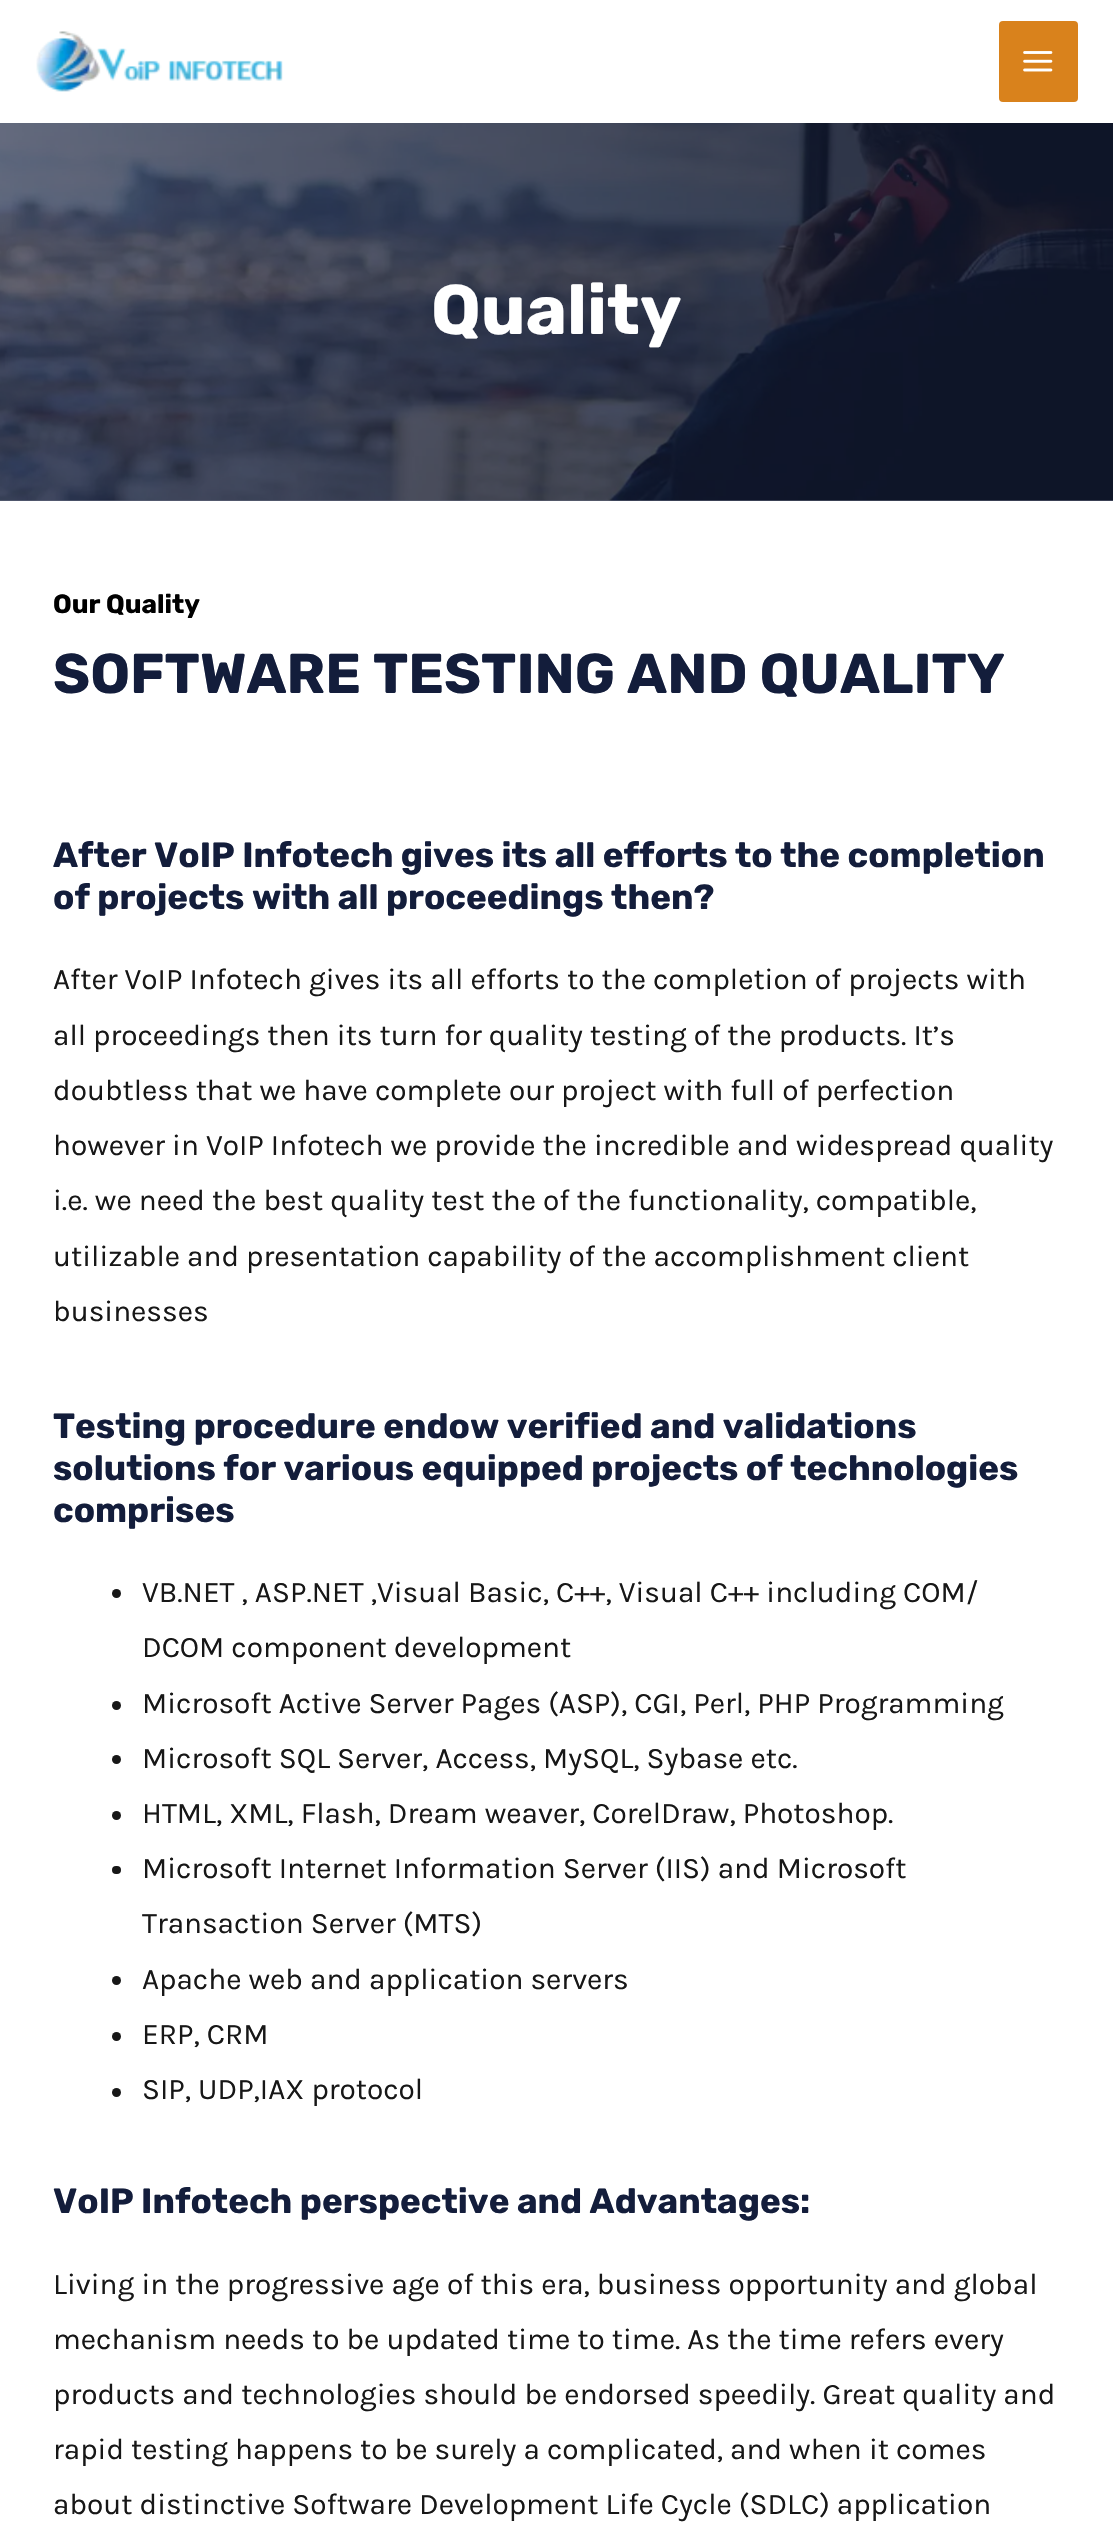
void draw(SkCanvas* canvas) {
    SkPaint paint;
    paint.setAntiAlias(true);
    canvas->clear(0xFFFFFFFF);
    paint.setColor(0xFF666C80);
    canvas->drawRect(SkRect::MakeXYWH(0, 500, 1113, 1), paint);
    canvas->drawImageRect(SkImages::DeferredFromEncodedData(SkData::MakeFromFileName("img1.png")), SkRect::MakeXYWH(36, 31, 247, 61), SkSamplingOptions());
    paint.setColor(0xFFD9821C);
    canvas->drawRoundRect(SkRect::MakeXYWH(999, 21, 79, 81), 4, 4, paint);
    canvas->drawImageRect(SkImages::DeferredFromEncodedData(SkData::MakeFromFileName("img2.png")), SkRect::MakeXYWH(1023, 51, 30, 21), SkSamplingOptions());
    canvas->drawImageRect(SkImages::DeferredFromEncodedData(SkData::MakeFromFileName("img3.png")), SkRect::MakeXYWH(0, 123, 1113, 378), SkSamplingOptions());
    SkFont font1(fontMgr->matchFamilyStyle("Rubik", SkFontStyle(300, SkFontStyle::kNormal_Width, SkFontStyle::kUpright_Slant)), 70);
    font1.setSubpixel(true);
    paint.setColor(0xFFFFFFFF);
    canvas->drawString("Quality", 431, 334, font1, paint);
    SkFont font2(fontMgr->matchFamilyStyle("Rubik", SkFontStyle(300, SkFontStyle::kNormal_Width, SkFontStyle::kUpright_Slant)), 26.25f);
    font2.setSubpixel(true);
    paint.setColor(0xFF000000);
    canvas->drawString("Our Quality", 53, 613, font2, paint);
    SkFont font3(fontMgr->matchFamilyStyle("Rubik", SkFontStyle(300, SkFontStyle::kNormal_Width, SkFontStyle::kUpright_Slant)), 56);
    font3.setSubpixel(true);
    paint.setColor(0xFF131D3B);
    canvas->drawString("SOFTWARE TESTING AND QUALITY", 53, 693, font3, paint);
    SkFont font4(fontMgr->matchFamilyStyle("Rubik", SkFontStyle(300, SkFontStyle::kNormal_Width, SkFontStyle::kUpright_Slant)), 35);
    font4.setSubpixel(true);
    canvas->drawString("After VoIP Infotech gives its all efforts to the completion", 53, 867, font4, paint);
    canvas->drawString("of projects with all proceedings then?", 53, 909, font4, paint);
    SkFont font5(fontMgr->matchFamilyStyle("Karla", SkFontStyle::Normal()), 29.75f);
    font5.setSubpixel(true);
    paint.setColor(0xFF171717);
    canvas->drawString("After VoIP Infotech gives its all efforts to the completion of projects with", 53, 989, font5, paint);
    canvas->drawString("all proceedings then its turn for quality testing of the products. It’s", 53, 1045, font5, paint);
    canvas->drawString("doubtless that we have complete our project with full of perfection", 53, 1100, font5, paint);
    canvas->drawString("however in VoIP Infotech we provide the incredible and widespread quality", 53, 1155, font5, paint);
    canvas->drawString("i.e. we need the best quality test the of the functionality, compatible,", 53, 1210, font5, paint);
    canvas->drawString("utilizable and presentation capability of the accomplishment client", 53, 1266, font5, paint);
    canvas->drawString("businesses", 53, 1321, font5, paint);
    paint.setColor(0xFF131D3B);
    canvas->drawString("Testing procedure endow verified and validations", 53, 1438, font4, paint);
    canvas->drawString("solutions for various equipped projects of technologies", 53, 1480, font4, paint);
    canvas->drawString("comprises", 53, 1522, font4, paint);
    paint.setColor(0xFF171717);
    canvas->drawCircle(116.5f, 1593.5f, 4.5f, paint);
    canvas->drawString("VB.NET , ASP.NET ,Visual Basic, C++, Visual C++ including COM/", 142, 1602, font5, paint);
    canvas->drawString("DCOM component development", 142, 1657, font5, paint);
    canvas->drawCircle(116.5f, 1705.5f, 4.5f, paint);
    canvas->drawString("Microsoft Active Server Pages (ASP), CGI, Perl, PHP Programming", 142, 1713, font5, paint);
    canvas->drawCircle(116.5f, 1759.5f, 4.5f, paint);
    canvas->drawString("Microsoft SQL Server, Access, MySQL, Sybase etc.", 142, 1768, font5, paint);
    canvas->drawCircle(116.5f, 1815.5f, 4.5f, paint);
    canvas->drawString("HTML, XML, Flash, Dream weaver, CorelDraw, Photoshop.", 142, 1823, font5, paint);
    canvas->drawRoundRect(SkRect::MakeXYWH(112, 1866, 9, 8), 4, 4, paint);
    canvas->drawString("Microsoft Internet Information Server (IIS) and Microsoft", 142, 1878, font5, paint);
    canvas->drawString("Transaction Server (MTS)", 142, 1933, font5, paint);
    canvas->drawCircle(116.5f, 1980.5f, 4.5f, paint);
    canvas->drawString("Apache web and application servers", 142, 1989, font5, paint);
    canvas->drawCircle(116.5f, 2036.5f, 4.5f, paint);
    canvas->drawString("ERP, CRM", 142, 2044, font5, paint);
    canvas->drawCircle(116.5f, 2092.5f, 4.5f, paint);
    canvas->drawString("SIP, UDP,IAX protocol", 142, 2099, font5, paint);
    paint.setColor(0xFF131D3B);
    canvas->drawString("VoIP Infotech perspective and Advantages:", 53, 2213, font4, paint);
    paint.setColor(0xFF171717);
    canvas->drawString("Living in the progressive age of this era, business opportunity and global", 53, 2294, font5, paint);
    canvas->drawString("mechanism needs to be updated time to time. As the time refers every", 53, 2349, font5, paint);
    canvas->drawString("products and technologies should be endorsed speedily. Great quality and", 53, 2404, font5, paint);
    canvas->drawString("rapid testing happens to be surely a complicated, and when it comes", 53, 2459, font5, paint);
    canvas->drawString("about distinctive Software Development Life Cycle (SDLC) application", 53, 2514, font5, paint);
}
